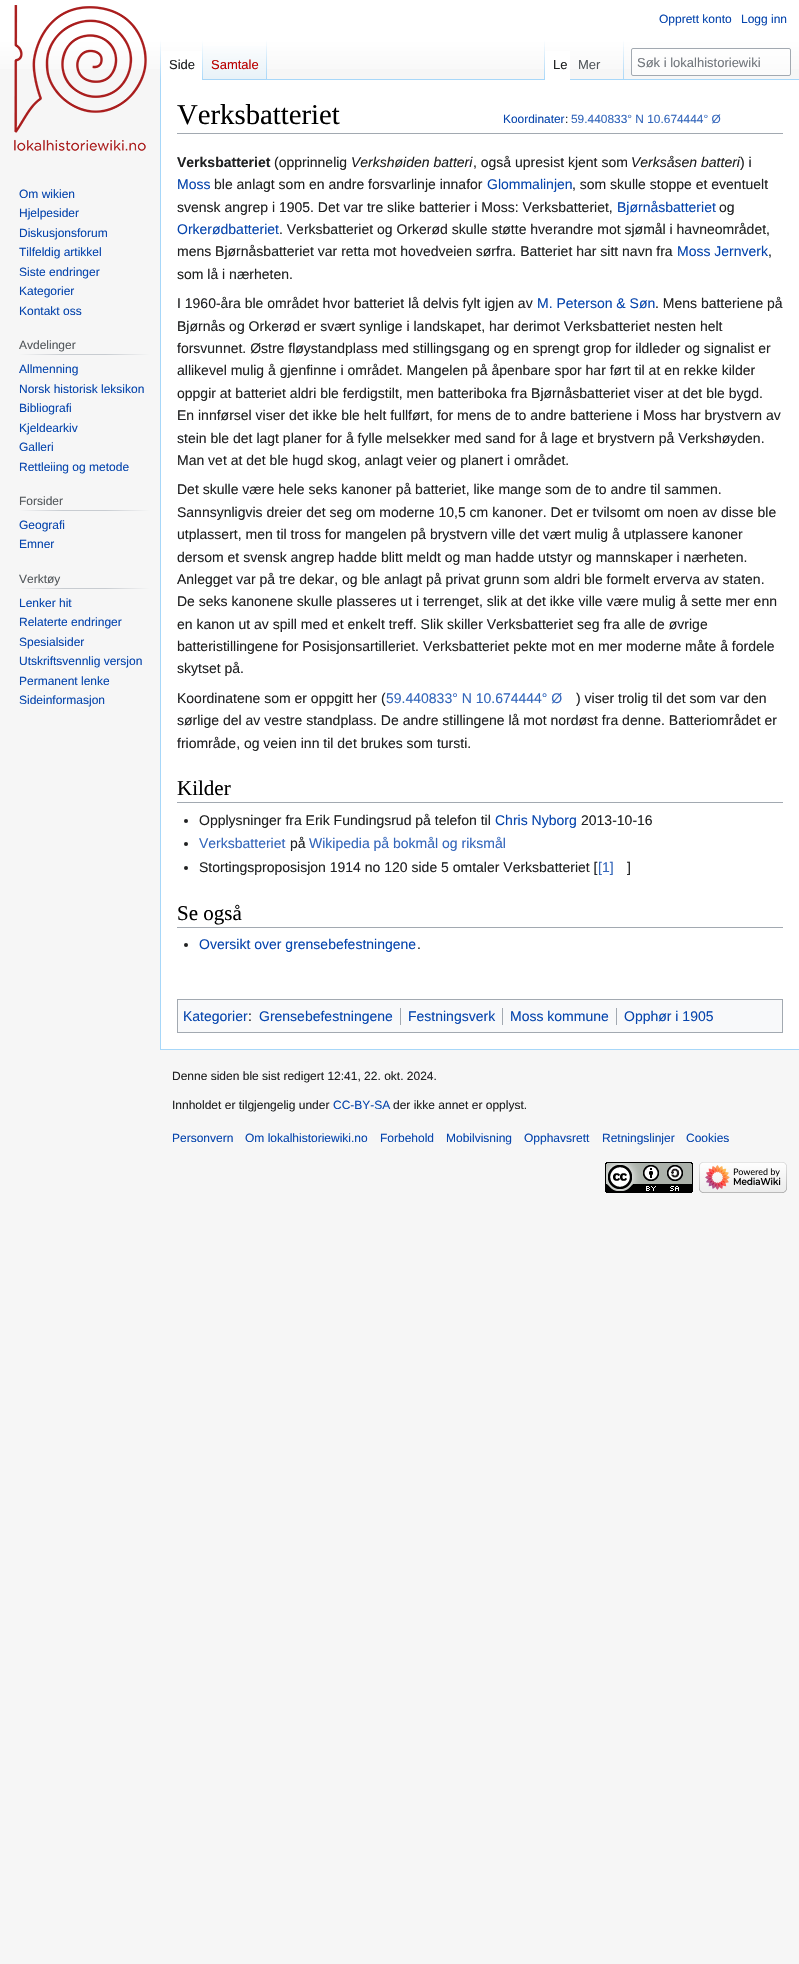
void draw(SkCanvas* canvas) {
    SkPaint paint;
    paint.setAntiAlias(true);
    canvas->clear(0xFFF6F6F6);
    {
        const SkColor colors[] = {0xFFFFFFFF, 0xFFF6F6F6};
        const float stops[] = {0.5f, 1};
        const SkPoint ends[] = {{400, 0}, {400, 80}};
        paint.setShader(SkGradientShader::MakeLinear(ends, colors, stops, 2, SkTileMode::kClamp));
        paint.setAlpha(255);
    }
    canvas->drawRect(SkRect::MakeXYWH(0, 0, 799, 69), paint);
    SkFont font1(fontMgr->matchFamilyStyle("Liberation Sans", SkFontStyle::Normal()), 12);
    font1.setSubpixel(true);
    paint.setShader(nullptr);
    paint.setColor(0xFF0645AD);
    canvas->drawString("Opprett konto", 659, 23, font1, paint);
    canvas->drawString("Logg inn", 741, 23, font1, paint);
    paint.setColor(0xFFA7D7F9);
    canvas->drawRect(SkRect::MakeXYWH(160, 1049, 639, 1), paint);
    canvas->drawRect(SkRect::MakeXYWH(160, 79, 1, 971), paint);
    {
        const SkColor colors[] = {0x00A7D7F9, 0xFFA7D7F9};
        const float stops[] = {0, 1};
        const SkPoint ends[] = {{161, 40}, {161, 80}};
        paint.setShader(SkGradientShader::MakeLinear(ends, colors, stops, 2, SkTileMode::kClamp));
        paint.setAlpha(255);
    }
    canvas->drawRect(SkRect::MakeXYWH(160, 40, 1, 40), paint);
    paint.setShader(nullptr);
    paint.setColor(0xFFFFFFFF);
    canvas->drawRect(SkRect::MakeXYWH(161, 51, 41, 29), paint);
    {
        const SkColor colors[] = {0xFFFFFFFF, 0xFFA7D7F9};
        const float stops[] = {0, 1};
        const SkPoint ends[] = {{203, 40}, {203, 80}};
        paint.setShader(SkGradientShader::MakeLinear(ends, colors, stops, 2, SkTileMode::kClamp));
        paint.setAlpha(255);
    }
    canvas->drawRect(SkRect::MakeXYWH(202, 40, 1, 40), paint);
    SkFont font2(fontMgr->matchFamilyStyle("Liberation Sans", SkFontStyle::Normal()), 13);
    font2.setSubpixel(true);
    paint.setShader(nullptr);
    paint.setColor(0xFF202122);
    canvas->drawString("Side", 169, 69, font2, paint);
    {
        const SkColor colors[] = {0xFF77C1F6, 0xFFE8F2F8, 0xFFFFFFFF};
        const float stops[] = {0, 0.03f, 1};
        const SkPoint ends[] = {{235, 80}, {235, 40}};
        paint.setShader(SkGradientShader::MakeLinear(ends, colors, stops, 3, SkTileMode::kClamp));
        paint.setAlpha(255);
    }
    canvas->drawRect(SkRect::MakeXYWH(203, 46, 64, 34), paint);
    {
        const SkColor colors[] = {0x00A7D7F9, 0xFFA7D7F9};
        const float stops[] = {0, 1};
        const SkPoint ends[] = {{267, 40}, {267, 80}};
        paint.setShader(SkGradientShader::MakeLinear(ends, colors, stops, 2, SkTileMode::kClamp));
        paint.setAlpha(255);
    }
    canvas->drawRect(SkRect::MakeXYWH(266, 40, 1, 40), paint);
    paint.setShader(nullptr);
    paint.setColor(0xFFBA0000);
    canvas->drawString("Samtale", 211, 69, font2, paint);
    paint.setColor(0xFFA7D7F9);
    canvas->drawRect(SkRect::MakeXYWH(267, 79, 532, 1), paint);
    {
        const SkColor colors[] = {0x00A7D7F9, 0xFFA7D7F9};
        const float stops[] = {0, 1};
        const SkPoint ends[] = {{545, 40}, {545, 80}};
        paint.setShader(SkGradientShader::MakeLinear(ends, colors, stops, 2, SkTileMode::kClamp));
        paint.setAlpha(255);
    }
    canvas->drawRect(SkRect::MakeXYWH(544, 40, 1, 40), paint);
    paint.setShader(nullptr);
    paint.setColor(0xFFFFFFFF);
    canvas->drawRect(SkRect::MakeXYWH(545, 51, 25, 29), paint);
    paint.setColor(0xFF202122);
    canvas->drawString("Le", 553, 69, font2, paint);
    {
        const SkColor colors[] = {0x00A7D7F9, 0xFFA7D7F9};
        const float stops[] = {0, 1};
        const SkPoint ends[] = {{624, 40}, {624, 80}};
        paint.setShader(SkGradientShader::MakeLinear(ends, colors, stops, 2, SkTileMode::kClamp));
        paint.setAlpha(255);
    }
    canvas->drawRect(SkRect::MakeXYWH(623, 40, 1, 40), paint);
    paint.setShader(nullptr);
    paint.setColor(0xFF54595D);
    canvas->drawString("Mer", 578, 69, font2, paint);
    paint.setColor(0x80FFFFFF);
    canvas->drawRoundRect(SkRect::MakeXYWH(631.5f, 48.5f, 159, 27), 1.5f, 1.5f, paint);
    paint.setStyle(SkPaint::kStroke_Style);
    paint.setStrokeWidth(1);
    paint.setColor(0xFFA2A9B1);
    canvas->drawRoundRect(SkRect::MakeXYWH(631.5f, 48.5f, 159, 27), 1.5f, 1.5f, paint);
    paint.setStyle(SkPaint::kFill_Style);
    paint.setColor(0xFF72777D);
    canvas->drawString("Søk i lokalhistoriewiki", 637, 67, font2, paint);
    canvas->drawImageRect(SkImages::DeferredFromEncodedData(SkData::MakeFromFileName("img1.png")), SkRect::MakeXYWH(14, 5, 133, 146), SkSamplingOptions());
    paint.setColor(0xFF0645AD);
    canvas->drawString("Om wikien", 19, 198, font1, paint);
    canvas->drawString("Hjelpesider", 19, 217, font1, paint);
    canvas->drawString("Diskusjonsforum", 19, 237, font1, paint);
    canvas->drawString("Tilfeldig artikkel", 19, 256, font1, paint);
    canvas->drawString("Siste endringer", 19, 276, font1, paint);
    canvas->drawString("Kategorier", 19, 295, font1, paint);
    canvas->drawString("Kontakt oss", 19, 315, font1, paint);
    {
        const SkColor colors[] = {0xFFF6F6F6, 0xFFC8CCD1, 0xFFC8CCD1, 0xFFF6F6F6};
        const float stops[] = {0, 0.33f, 0.66f, 1};
        const SkPoint ends[] = {{19, 355}, {150, 355}};
        paint.setShader(SkGradientShader::MakeLinear(ends, colors, stops, 4, SkTileMode::kClamp));
        paint.setAlpha(255);
    }
    canvas->drawRect(SkRect::MakeXYWH(19, 354, 131, 1), paint);
    paint.setShader(nullptr);
    paint.setColor(0xFF54595D);
    canvas->drawString("Avdelinger", 19, 349, font1, paint);
    paint.setColor(0xFF0645AD);
    canvas->drawString("Allmenning", 19, 373, font1, paint);
    canvas->drawString("Norsk historisk leksikon", 19, 393, font1, paint);
    canvas->drawString("Bibliografi", 19, 412, font1, paint);
    canvas->drawString("Kjeldearkiv", 19, 432, font1, paint);
    canvas->drawString("Galleri", 19, 451, font1, paint);
    canvas->drawString("Rettleiing og metode", 19, 471, font1, paint);
    {
        const SkColor colors[] = {0xFFF6F6F6, 0xFFC8CCD1, 0xFFC8CCD1, 0xFFF6F6F6};
        const float stops[] = {0, 0.33f, 0.66f, 1};
        const SkPoint ends[] = {{19, 511}, {150, 511}};
        paint.setShader(SkGradientShader::MakeLinear(ends, colors, stops, 4, SkTileMode::kClamp));
        paint.setAlpha(255);
    }
    canvas->drawRect(SkRect::MakeXYWH(19, 510, 131, 1), paint);
    paint.setShader(nullptr);
    paint.setColor(0xFF54595D);
    canvas->drawString("Forsider", 19, 505, font1, paint);
    paint.setColor(0xFF0645AD);
    canvas->drawString("Geografi", 19, 529, font1, paint);
    canvas->drawString("Emner", 19, 548, font1, paint);
    {
        const SkColor colors[] = {0xFFF6F6F6, 0xFFC8CCD1, 0xFFC8CCD1, 0xFFF6F6F6};
        const float stops[] = {0, 0.33f, 0.66f, 1};
        const SkPoint ends[] = {{19, 589}, {150, 589}};
        paint.setShader(SkGradientShader::MakeLinear(ends, colors, stops, 4, SkTileMode::kClamp));
        paint.setAlpha(255);
    }
    canvas->drawRect(SkRect::MakeXYWH(19, 588, 131, 1), paint);
    paint.setShader(nullptr);
    paint.setColor(0xFF54595D);
    canvas->drawString("Verktøy", 19, 583, font1, paint);
    paint.setColor(0xFF0645AD);
    canvas->drawString("Lenker hit", 19, 607, font1, paint);
    canvas->drawString("Relaterte endringer", 19, 626, font1, paint);
    canvas->drawString("Spesialsider", 19, 646, font1, paint);
    canvas->drawString("Utskriftsvennlig versjon", 19, 665, font1, paint);
    canvas->drawString("Permanent lenke", 19, 685, font1, paint);
    canvas->drawString("Sideinformasjon", 19, 704, font1, paint);
    paint.setColor(0xFFFFFFFF);
    canvas->drawRect(SkRect::MakeXYWH(161, 80, 638, 969), paint);
    paint.setColor(0xFFA2A9B1);
    canvas->drawRect(SkRect::MakeXYWH(177, 133, 606, 1), paint);
    SkFont font3(fontMgr->matchFamilyStyle("Liberation Serif", SkFontStyle::Normal()), 28.75f);
    font3.setSubpixel(true);
    paint.setColor(0xFF000000);
    canvas->drawString("Verksbatteriet", 177, 124, font3, paint);
    SkFont font4(fontMgr->matchFamilyStyle("Liberation Sans", SkFontStyle::Normal()), 11.9f);
    font4.setSubpixel(true);
    paint.setColor(0xFF0645AD);
    canvas->drawString("Koordinater", 503, 123, font4, paint);
    paint.setColor(0xFF202122);
    canvas->drawString(":", 565, 123, font4, paint);
    paint.setColor(0xFF3366BB);
    canvas->drawString("59.440833° N 10.674444° Ø", 571, 123, font4, paint);
    SkFont font5(fontMgr->matchFamilyStyle("Liberation Sans", SkFontStyle::Bold()), 14);
    font5.setSubpixel(true);
    paint.setColor(0xFF202122);
    canvas->drawString("Verksbatteriet", 177, 167, font5, paint);
    SkFont font6(fontMgr->matchFamilyStyle("Liberation Sans", SkFontStyle::Normal()), 14);
    font6.setSubpixel(true);
    canvas->drawString("(opprinnelig", 274, 167, font6, paint);
    SkFont font7(fontMgr->matchFamilyStyle("Liberation Sans", SkFontStyle::Italic()), 14);
    font7.setSubpixel(true);
    canvas->drawString("Verkshøiden batteri", 351, 167, font7, paint);
    canvas->drawString(", også upresist kjent som", 473, 167, font6, paint);
    canvas->drawString("Verksåsen batteri", 631, 167, font7, paint);
    canvas->drawString(") i", 740, 167, font6, paint);
    paint.setColor(0xFF0645AD);
    canvas->drawString("Moss", 177, 189, font6, paint);
    paint.setColor(0xFF202122);
    canvas->drawString("ble anlagt som en andre forsvarlinje innafor", 214, 189, font6, paint);
    paint.setColor(0xFF0645AD);
    canvas->drawString("Glommalinjen", 487, 189, font6, paint);
    paint.setColor(0xFF202122);
    canvas->drawString(", som skulle stoppe et eventuelt", 572, 189, font6, paint);
    canvas->drawString("svensk angrep i 1905. Det var tre slike batterier i Moss: Verksbatteriet,", 177, 212, font6, paint);
    paint.setColor(0xFF0645AD);
    canvas->drawString("Bjørnåsbatteriet", 617, 212, font6, paint);
    paint.setColor(0xFF202122);
    canvas->drawString("og", 719, 212, font6, paint);
    paint.setColor(0xFF0645AD);
    canvas->drawString("Orkerødbatteriet", 177, 234, font6, paint);
    paint.setColor(0xFF202122);
    canvas->drawString(". Verksbatteriet og Orkerød skulle støtte hverandre mot sjømål i havneområdet,", 279, 234, font6, paint);
    canvas->drawString("mens Bjørnåsbatteriet var retta mot hovedveien sørfra. Batteriet har sitt navn fra", 177, 256, font6, paint);
    paint.setColor(0xFF0645AD);
    canvas->drawString("Moss Jernverk", 677, 256, font6, paint);
    paint.setColor(0xFF202122);
    canvas->drawString(",", 768, 256, font6, paint);
    canvas->drawString("som lå i nærheten.", 177, 279, font6, paint);
    canvas->drawString("I 1960-åra ble området hvor batteriet lå delvis fylt igjen av", 177, 308, font6, paint);
    paint.setColor(0xFF0645AD);
    canvas->drawString("M. Peterson & Søn", 537, 308, font6, paint);
    paint.setColor(0xFF202122);
    canvas->drawString(". Mens batteriene på", 655, 308, font6, paint);
    canvas->drawString("Bjørnås og Orkerød er svært synlige i landskapet, har derimot Verksbatteriet nesten helt", 177, 331, font6, paint);
    canvas->drawString("forsvunnet. Østre fløystandplass med stillingsgang og en sprengt grop for ildleder og signalist er", 177, 353, font6, paint);
    canvas->drawString("allikevel mulig å gjenfinne i området. Mangelen på åpenbare spor har ført til at en rekke kilder", 177, 375, font6, paint);
    canvas->drawString("oppgir at batteriet aldri ble ferdigstilt, men batteriboka fra Bjørnåsbatteriet viser at det ble bygd.", 177, 398, font6, paint);
    canvas->drawString("En innførsel viser det ikke ble helt fullført, for mens de to andre batteriene i Moss har brystvern av", 177, 420, font6, paint);
    canvas->drawString("stein ble det lagt planer for å fylle melsekker med sand for å lage et brystvern på Verkshøyden.", 177, 443, font6, paint);
    canvas->drawString("Man vet at det ble hugd skog, anlagt veier og planert i området.", 177, 465, font6, paint);
    canvas->drawString("Det skulle være hele seks kanoner på batteriet, like mange som de to andre til sammen.", 177, 494, font6, paint);
    canvas->drawString("Sannsynligvis dreier det seg om moderne 10,5 cm kanoner. Det er tvilsomt om noen av disse ble", 177, 517, font6, paint);
    canvas->drawString("utplassert, men til tross for mangelen på brystvern ville det vært mulig å utplassere kanoner", 177, 539, font6, paint);
    canvas->drawString("dersom et svensk angrep hadde blitt meldt og man hadde utstyr og mannskaper i nærheten.", 177, 562, font6, paint);
    canvas->drawString("Anlegget var på tre dekar, og ble anlagt på privat grunn som aldri ble formelt erverva av staten.", 177, 584, font6, paint);
    canvas->drawString("De seks kanonene skulle plasseres ut i terrenget, slik at det ikke ville være mulig å sette mer enn", 177, 606, font6, paint);
    canvas->drawString("en kanon ut av spill med et enkelt treff. Slik skiller Verksbatteriet seg fra alle de øvrige", 177, 629, font6, paint);
    canvas->drawString("batteristillingene for Posisjonsartilleriet. Verksbatteriet pekte mot en mer moderne måte å fordele", 177, 651, font6, paint);
    canvas->drawString("skytset på.", 177, 673, font6, paint);
    canvas->drawString("Koordinatene som er oppgitt her (", 177, 703, font6, paint);
    paint.setColor(0xFF3366BB);
    canvas->drawString("59.440833° N 10.674444° Ø", 386, 703, font6, paint);
    paint.setColor(0xFF202122);
    canvas->drawString(") viser trolig til det som var den", 576, 703, font6, paint);
    canvas->drawString("sørlige del av vestre standplass. De andre stillingene lå mot nordøst fra denne. Batteriområdet er", 177, 725, font6, paint);
    canvas->drawString("friområde, og veien inn til det brukes som tursti.", 177, 748, font6, paint);
    paint.setColor(0xFFA2A9B1);
    canvas->drawRect(SkRect::MakeXYWH(177, 802, 606, 1), paint);
    SkFont font8(fontMgr->matchFamilyStyle("Liberation Serif", SkFontStyle::Normal()), 21);
    font8.setSubpixel(true);
    paint.setColor(0xFF000000);
    canvas->drawString("Kilder", 177, 795, font8, paint);
    paint.setColor(0xFF202122);
    canvas->drawCircle(186, 821, 2, paint);
    canvas->drawString("Opplysninger fra Erik Fundingsrud på telefon til", 199, 825, font6, paint);
    paint.setColor(0xFF0645AD);
    canvas->drawString("Chris Nyborg", 495, 825, font6, paint);
    paint.setColor(0xFF202122);
    canvas->drawString("2013-10-16", 581, 825, font6, paint);
    canvas->drawCircle(186, 844, 2, paint);
    paint.setColor(0xFF3366BB);
    canvas->drawString("Verksbatteriet", 199, 848, font6, paint);
    paint.setColor(0xFF202122);
    canvas->drawString("på", 290, 848, font6, paint);
    paint.setColor(0xFF3366BB);
    canvas->drawString("Wikipedia på bokmål og riksmål", 309, 848, font6, paint);
    paint.setColor(0xFF202122);
    canvas->drawCircle(186, 868, 2, paint);
    canvas->drawString("Stortingsproposisjon 1914 no 120 side 5 omtaler Verksbatteriet [", 199, 872, font6, paint);
    paint.setColor(0xFF3366BB);
    canvas->drawString("[1]", 598, 872, font6, paint);
    paint.setColor(0xFF202122);
    canvas->drawString("]", 627, 872, font6, paint);
    paint.setColor(0xFFA2A9B1);
    canvas->drawRect(SkRect::MakeXYWH(177, 927, 606, 1), paint);
    paint.setColor(0xFF000000);
    canvas->drawString("Se også", 177, 920, font8, paint);
    paint.setColor(0xFF202122);
    canvas->drawCircle(186, 945, 2, paint);
    paint.setColor(0xFF0645AD);
    canvas->drawString("Oversikt over grensebefestningene", 199, 949, font6, paint);
    paint.setColor(0xFF202122);
    canvas->drawString(".", 417, 949, font6, paint);
    paint.setColor(0xFFF8F9FA);
    canvas->drawRect(SkRect::MakeXYWH(177.5f, 999.5f, 605, 33), paint);
    paint.setStyle(SkPaint::kStroke_Style);
    paint.setColor(0xFFA2A9B1);
    canvas->drawRect(SkRect::MakeXYWH(177.5f, 999.5f, 605, 33), paint);
    paint.setStyle(SkPaint::kFill_Style);
    paint.setColor(0xFF0645AD);
    canvas->drawString("Kategorier", 183, 1021, font6, paint);
    paint.setColor(0xFF202122);
    canvas->drawString(":", 248, 1021, font6, paint);
    paint.setColor(0xFF0645AD);
    canvas->drawString("Grensebefestningene", 259, 1021, font6, paint);
    paint.setColor(0xFFA2A9B1);
    canvas->drawRect(SkRect::MakeXYWH(400, 1008, 1, 17), paint);
    paint.setColor(0xFF0645AD);
    canvas->drawString("Festningsverk", 408, 1021, font6, paint);
    paint.setColor(0xFFA2A9B1);
    canvas->drawRect(SkRect::MakeXYWH(502, 1008, 1, 17), paint);
    paint.setColor(0xFF0645AD);
    canvas->drawString("Moss kommune", 510, 1021, font6, paint);
    paint.setColor(0xFFA2A9B1);
    canvas->drawRect(SkRect::MakeXYWH(616, 1008, 1, 17), paint);
    paint.setColor(0xFF0645AD);
    canvas->drawString("Opphør i 1905", 624, 1021, font6, paint);
    paint.setColor(0xFF202122);
    canvas->drawString("Denne siden ble sist redigert 12:41, 22. okt. 2024.", 172, 1080, font1, paint);
    canvas->drawString("Innholdet er tilgjengelig under", 172, 1109, font1, paint);
    paint.setColor(0xFF0645AD);
    canvas->drawString("CC-BY-SA", 333, 1109, font1, paint);
    paint.setColor(0xFF202122);
    canvas->drawString("der ikke annet er opplyst.", 393, 1109, font1, paint);
    paint.setColor(0xFF0645AD);
    canvas->drawString("Personvern", 172, 1142, font1, paint);
    canvas->drawString("Om lokalhistoriewiki.no", 245, 1142, font1, paint);
    canvas->drawString("Forbehold", 380, 1142, font1, paint);
    canvas->drawString("Mobilvisning", 446, 1142, font1, paint);
    canvas->drawString("Opphavsrett", 524, 1142, font1, paint);
    canvas->drawString("Retningslinjer", 602, 1142, font1, paint);
    canvas->drawString("Cookies", 686, 1142, font1, paint);
    canvas->drawImageRect(SkImages::DeferredFromEncodedData(SkData::MakeFromFileName("img2.png")), SkRect::MakeXYWH(605, 1162, 88, 31), SkSamplingOptions());
    canvas->drawImageRect(SkImages::DeferredFromEncodedData(SkData::MakeFromFileName("img3.png")), SkRect::MakeXYWH(699, 1162, 88, 31), SkSamplingOptions());
}
